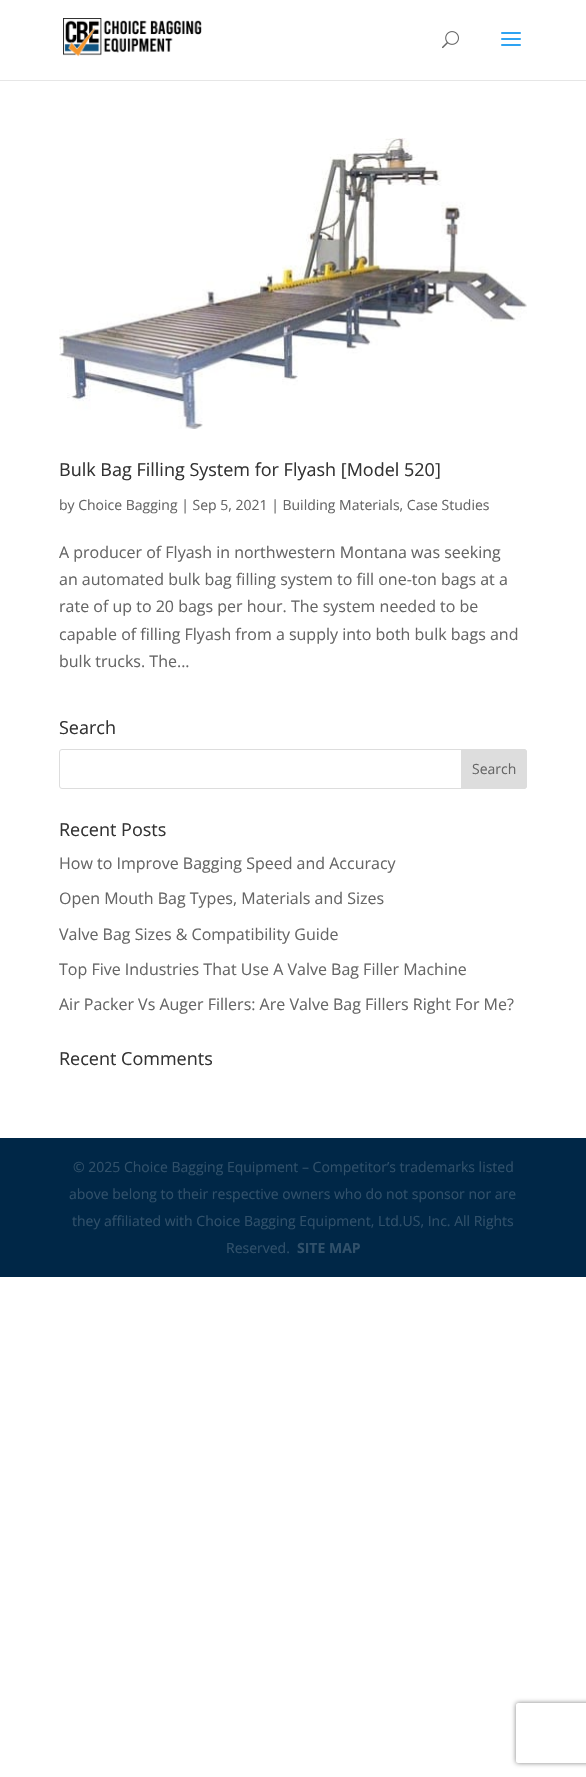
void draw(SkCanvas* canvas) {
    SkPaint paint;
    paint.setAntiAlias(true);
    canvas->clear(0xFFFFFFFF);
    paint.setColor(0xFFE6E6E6);
    canvas->drawRect(SkRect::MakeXYWH(0, 80, 586, 1), paint);
    canvas->drawImageRect(SkImages::DeferredFromEncodedData(SkData::MakeFromFileName("img1.png")), SkRect::MakeXYWH(63, 18, 139, 39), SkSamplingOptions());
    canvas->drawImageRect(SkImages::DeferredFromEncodedData(SkData::MakeFromFileName("img2.png")), SkRect::MakeXYWH(442, 31, 17, 18), SkSamplingOptions());
    canvas->drawImageRect(SkImages::DeferredFromEncodedData(SkData::MakeFromFileName("img3.png")), SkRect::MakeXYWH(501, 32, 20, 14), SkSamplingOptions());
    canvas->drawImageRect(SkImages::DeferredFromEncodedData(SkData::MakeFromFileName("img4.png")), SkRect::MakeXYWH(59, 138, 468, 291), SkSamplingOptions());
    SkFont font1(fontMgr->matchFamilyStyle("Open Sans", SkFontStyle::Normal()), 18);
    font1.setSubpixel(true);
    paint.setColor(0xFF333333);
    canvas->drawString("Bulk Bag Filling System for Flyash [Model 520]", 59, 476, font1, paint);
    SkFont font2(fontMgr->matchFamilyStyle("Open Sans", SkFontStyle::Normal()), 14);
    font2.setSubpixel(true);
    paint.setColor(0xFF666666);
    canvas->drawString("by Choice Bagging | Sep 5, 2021 | Building Materials, Case Studies", 59, 510, font2, paint);
    SkFont font3(fontMgr->matchFamilyStyle("Open Sans", SkFontStyle::Normal()), 16);
    font3.setSubpixel(true);
    canvas->drawString("A producer of Flyash in northwestern Montana was seeking", 59, 558, font3, paint);
    canvas->drawString("an automated bulk bag filling system to fill one-ton bags at a", 59, 585, font3, paint);
    canvas->drawString("rate of up to 20 bags per hour. The system needed to be", 59, 612, font3, paint);
    canvas->drawString("capable of filling Flyash from a supply into both bulk bags and", 59, 640, font3, paint);
    canvas->drawString("bulk trucks. The...", 59, 667, font3, paint);
    paint.setColor(0xFF333333);
    canvas->drawString("Search", 59, 734, font1, paint);
    paint.setStyle(SkPaint::kStroke_Style);
    paint.setStrokeWidth(1);
    paint.setColor(0xFFDDDDDD);
    canvas->drawRoundRect(SkRect::MakeXYWH(59.5f, 749.5f, 467, 39), 2.5f, 2.5f, paint);
    paint.setStyle(SkPaint::kFill_Style);
    canvas->drawPath(SkPathBuilder().moveTo(461.5f, 749.5f).lineTo(524, 749.5f).cubicTo(525.5f, 749.5f, 526.5f, 750.5f, 526.5f, 752).lineTo(526.5f, 786).cubicTo(526.5f, 787.5f, 525.5f, 788.5f, 524, 788.5f).lineTo(461.5f, 788.5f).close().detach(), paint);
    paint.setStyle(SkPaint::kStroke_Style);
    canvas->drawPath(SkPathBuilder().moveTo(461.5f, 749.5f).lineTo(524, 749.5f).cubicTo(525.5f, 749.5f, 526.5f, 750.5f, 526.5f, 752).lineTo(526.5f, 786).cubicTo(526.5f, 787.5f, 525.5f, 788.5f, 524, 788.5f).lineTo(461.5f, 788.5f).close().detach(), paint);
    paint.setStyle(SkPaint::kFill_Style);
    paint.setColor(0xFF666666);
    canvas->drawString("Search", 472, 774, font2, paint);
    paint.setColor(0xFF333333);
    canvas->drawString("Recent Posts", 59, 836, font1, paint);
    paint.setColor(0xFF666666);
    canvas->drawString("How to Improve Bagging Speed and Accuracy", 59, 869, font3, paint);
    canvas->drawString("Open Mouth Bag Types, Materials and Sizes", 59, 904, font3, paint);
    canvas->drawString("Valve Bag Sizes & Compatibility Guide", 59, 940, font3, paint);
    canvas->drawString("Top Five Industries That Use A Valve Bag Filler Machine", 59, 975, font3, paint);
    canvas->drawString("Air Packer Vs Auger Fillers: Are Valve Bag Fillers Right For Me?", 59, 1010, font3, paint);
    paint.setColor(0xFF333333);
    canvas->drawString("Recent Comments", 59, 1065, font1, paint);
    paint.setColor(0xFF002747);
    canvas->drawRect(SkRect::MakeXYWH(0, 1138, 586, 139), paint);
    paint.setColor(0xFF30506A);
    canvas->drawString("© 2025 Choice Bagging Equipment – Competitor’s trademarks listed", 73, 1172, font2, paint);
    canvas->drawString("above belong to their respective owners who do not sponsor nor are", 69, 1199, font2, paint);
    canvas->drawString("they affiliated with Choice Bagging Equipment, Ltd.US, Inc. All Rights", 72, 1226, font2, paint);
    canvas->drawString("Reserved.", 226, 1253, font2, paint);
    SkFont font4(fontMgr->matchFamilyStyle("Open Sans", SkFontStyle::Bold()), 14);
    font4.setSubpixel(true);
    canvas->drawString("SITE MAP", 297, 1253, font4, paint);
    canvas->save();
    canvas->clipPath(SkPathBuilder(SkPathFillType::kEvenOdd).moveTo(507, 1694).lineTo(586, 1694).lineTo(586, 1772).lineTo(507, 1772).close().moveTo(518, 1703).lineTo(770, 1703).cubicTo(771, 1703, 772, 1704, 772, 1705).lineTo(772, 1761).cubicTo(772, 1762, 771, 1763, 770, 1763).lineTo(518, 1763).cubicTo(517, 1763, 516, 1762, 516, 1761).lineTo(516, 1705).cubicTo(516, 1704, 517, 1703, 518, 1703).close().detach(), true);
    paint.setColor(0xFF808080);
    paint.setMaskFilter(SkMaskFilter::MakeBlur(kNormal_SkBlurStyle, 2.5f));
    canvas->drawRoundRect(SkRect::MakeXYWH(516, 1703, 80, 60), 2, 2, paint);
    paint.setMaskFilter(nullptr);
    canvas->restore();
}
